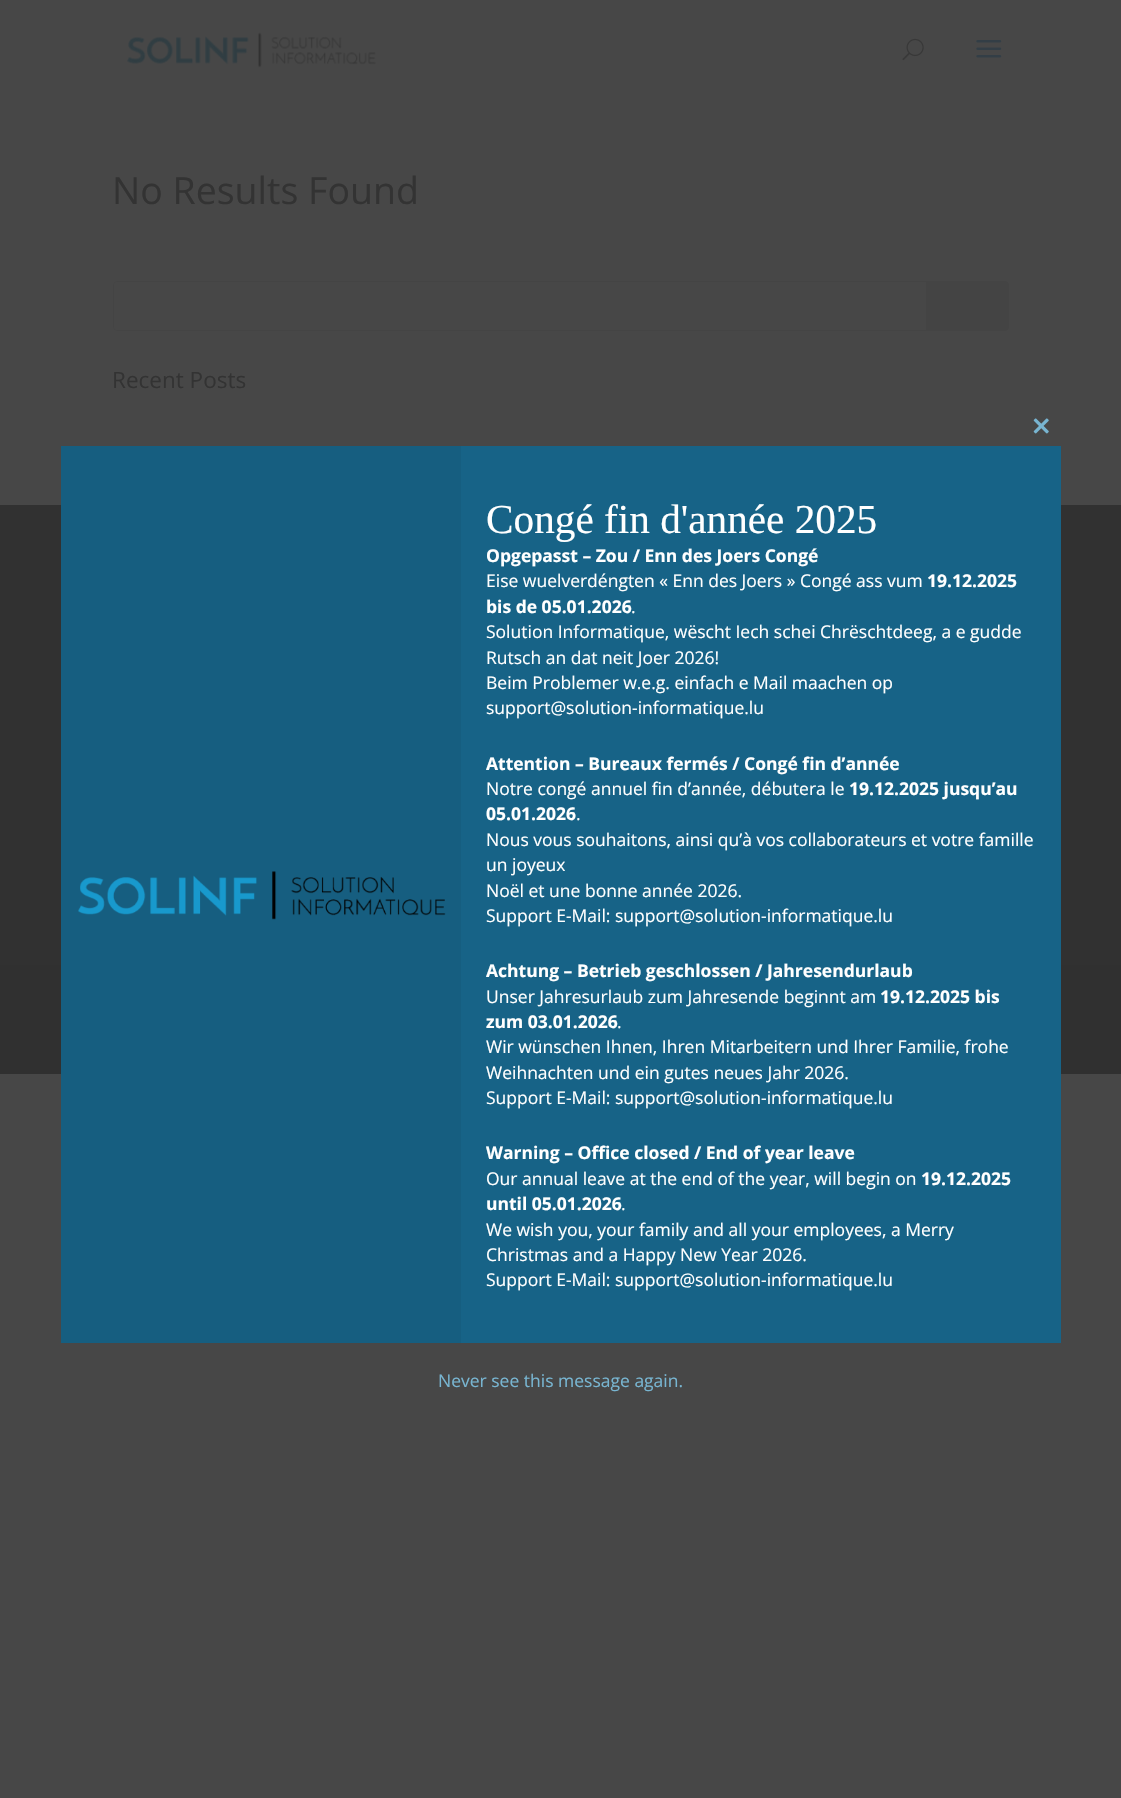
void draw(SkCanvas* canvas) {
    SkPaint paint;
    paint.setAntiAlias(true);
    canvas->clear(0xFF474747);
    canvas->drawImageRect(SkImages::DeferredFromEncodedData(SkData::MakeFromFileName("img1.png")), SkRect::MakeXYWH(127, 32, 249, 36), SkSamplingOptions());
    canvas->drawImageRect(SkImages::DeferredFromEncodedData(SkData::MakeFromFileName("img2.png")), SkRect::MakeXYWH(902, 38, 22, 23), SkSamplingOptions());
    canvas->drawImageRect(SkImages::DeferredFromEncodedData(SkData::MakeFromFileName("img3.png")), SkRect::MakeXYWH(976, 40, 26, 18), SkSamplingOptions());
    SkFont font1(fontMgr->matchFamilyStyle("Open Sans", SkFontStyle::Normal()), 37.5f);
    font1.setSubpixel(true);
    paint.setColor(0xFF333333);
    canvas->drawString("No Results Found", 112, 204, font1, paint);
    paint.setStyle(SkPaint::kStroke_Style);
    paint.setStrokeWidth(1);
    paint.setColor(0xFF444444);
    canvas->drawRoundRect(SkRect::MakeXYWH(113.5f, 281.5f, 895, 49), 3.5f, 3.5f, paint);
    paint.setStyle(SkPaint::kFill_Style);
    canvas->drawPath(SkPathBuilder().moveTo(926, 281).lineTo(1005, 281).cubicTo(1007, 281, 1009, 283, 1009, 285).lineTo(1009, 327).cubicTo(1009, 329, 1007, 331, 1005, 331).lineTo(926, 331).close().detach(), paint);
    SkFont font2(fontMgr->matchFamilyStyle("Open Sans", SkFontStyle::Normal()), 22.5f);
    font2.setSubpixel(true);
    paint.setColor(0xFF333333);
    canvas->drawString("Recent Posts", 112, 388, font2, paint);
    paint.setColor(0xFF313131);
    canvas->drawRect(SkRect::MakeXYWH(0, 505, 1121, 460), paint);
    paint.setColor(0xFF303030);
    canvas->drawRect(SkRect::MakeXYWH(0, 965, 1121, 109), paint);
    paint.setColor(0xFF176387);
    canvas->drawRect(SkRect::MakeXYWH(461, 446, 600, 897), paint);
    canvas->drawImageRect(SkImages::DeferredFromEncodedData(SkData::MakeFromFileName("img4.png")), SkRect::MakeXYWH(1033, 418, 16, 16), SkSamplingOptions());
    paint.setColor(0xFF165E80);
    canvas->drawRect(SkRect::MakeXYWH(61, 446, 400, 897), paint);
    canvas->drawImageRect(SkImages::DeferredFromEncodedData(SkData::MakeFromFileName("img5.png")), SkRect::MakeXYWH(78, 871, 368, 49), SkSamplingOptions());
    SkFont font3(fontMgr->matchFamilyStyle("Liberation Serif", SkFontStyle::Normal()), 41.25f);
    font3.setSubpixel(true);
    paint.setColor(0xFFFFFFFF);
    canvas->drawString("Congé fin d'année 2025", 486, 533, font3, paint);
    SkFont font4(fontMgr->matchFamilyStyle("Open Sans", SkFontStyle::Bold()), 17.5f);
    font4.setSubpixel(true);
    canvas->drawString("Opgepasst – Zou / Enn des Joers Congé", 486, 562, font4, paint);
    SkFont font5(fontMgr->matchFamilyStyle("Open Sans", SkFontStyle::Normal()), 17.5f);
    font5.setSubpixel(true);
    canvas->drawString("Eise wuelverdéngten « Enn des Joers » Congé ass vum", 486, 587, font5, paint);
    canvas->drawString("19.12.2025", 927, 587, font4, paint);
    canvas->drawString("bis de 05.01.2026", 486, 613, font4, paint);
    canvas->drawString(".", 631, 613, font5, paint);
    canvas->drawString("Solution Informatique, wëscht Iech schei Chrëschtdeeg, a e gudde", 486, 638, font5, paint);
    canvas->drawString("Rutsch an dat neit Joer 2026!", 486, 664, font5, paint);
    canvas->drawString("Beim Problemer w.e.g. einfach e Mail maachen op", 486, 689, font5, paint);
    canvas->drawString("support@solution-informatique.lu", 486, 714, font5, paint);
    canvas->drawString("Attention – Bureaux fermés / Congé fin d’année", 486, 770, font4, paint);
    canvas->drawString("Notre congé annuel fin d’année, débutera le", 486, 795, font5, paint);
    canvas->drawString("19.12.2025 jusqu’au", 849, 795, font4, paint);
    canvas->drawString("05.01.2026", 486, 820, font4, paint);
    canvas->drawString(".", 576, 820, font5, paint);
    canvas->drawString("Nous vous souhaitons, ainsi qu’à vos collaborateurs et votre famille", 486, 846, font5, paint);
    canvas->drawString("un joyeux", 486, 871, font5, paint);
    canvas->drawString("Noël et une bonne année 2026.", 486, 897, font5, paint);
    canvas->drawString("Support E-Mail: support@solution-informatique.lu", 486, 922, font5, paint);
    canvas->drawString("Achtung – Betrieb geschlossen / Jahresendurlaub", 486, 977, font4, paint);
    canvas->drawString("Unser Jahresurlaub zum Jahresende beginnt am", 486, 1003, font5, paint);
    canvas->drawString("19.12.2025 bis", 880, 1003, font4, paint);
    canvas->drawString("zum 03.01.2026", 486, 1028, font4, paint);
    canvas->drawString(".", 617, 1028, font5, paint);
    canvas->drawString("Wir wünschen Ihnen, Ihren Mitarbeitern und Ihrer Familie, frohe", 486, 1053, font5, paint);
    canvas->drawString("Weihnachten und ein gutes neues Jahr 2026.", 486, 1079, font5, paint);
    canvas->drawString("Support E-Mail: support@solution-informatique.lu", 486, 1104, font5, paint);
    canvas->drawString("Warning – Office closed / End of year leave", 486, 1159, font4, paint);
    canvas->drawString("Our annual leave at the end of the year, will begin on", 486, 1185, font5, paint);
    canvas->drawString("19.12.2025", 921, 1185, font4, paint);
    canvas->drawString("until 05.01.2026", 486, 1210, font4, paint);
    canvas->drawString(".", 621, 1210, font5, paint);
    canvas->drawString("We wish you, your family and all your employees, a Merry", 486, 1236, font5, paint);
    canvas->drawString("Christmas and a Happy New Year 2026.", 486, 1261, font5, paint);
    canvas->drawString("Support E-Mail: support@solution-informatique.lu", 486, 1286, font5, paint);
    paint.setColor(0xFF78B5D1);
    canvas->drawString("Never see this message again.", 438, 1387, font5, paint);
}
